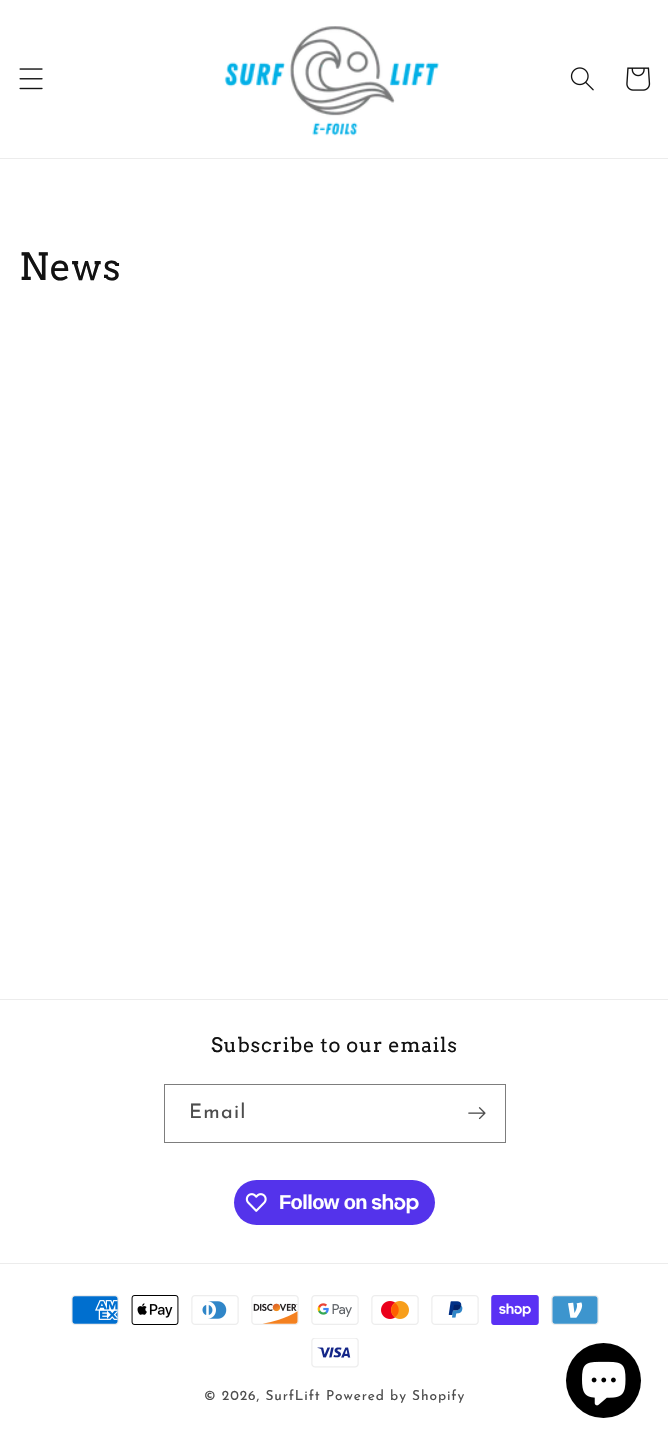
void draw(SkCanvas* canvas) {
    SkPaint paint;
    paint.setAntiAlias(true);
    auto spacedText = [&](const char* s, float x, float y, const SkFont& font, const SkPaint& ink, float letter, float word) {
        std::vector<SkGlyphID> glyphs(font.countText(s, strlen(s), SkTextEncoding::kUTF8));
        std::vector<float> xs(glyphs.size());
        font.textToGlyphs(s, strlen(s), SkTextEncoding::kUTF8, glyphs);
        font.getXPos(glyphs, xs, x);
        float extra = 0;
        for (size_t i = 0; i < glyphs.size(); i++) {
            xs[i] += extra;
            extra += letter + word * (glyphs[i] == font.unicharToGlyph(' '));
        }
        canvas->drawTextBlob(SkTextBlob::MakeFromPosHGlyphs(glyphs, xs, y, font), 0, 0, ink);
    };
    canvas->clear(0xFFFFFFFF);
    paint.setColor(0xFFECECEC);
    canvas->drawRect(SkRect::MakeXYWH(0, 158, 668, 1), paint);
    canvas->drawImageRect(SkImages::DeferredFromEncodedData(SkData::MakeFromFileName("img1.png")), SkRect::MakeXYWH(19, 68, 24, 22), SkSamplingOptions());
    canvas->drawImageRect(SkImages::DeferredFromEncodedData(SkData::MakeFromFileName("img2.png")), SkRect::MakeXYWH(224, 26, 215, 110), SkSamplingOptions());
    canvas->drawImageRect(SkImages::DeferredFromEncodedData(SkData::MakeFromFileName("img3.png")), SkRect::MakeXYWH(570, 67, 24, 24), SkSamplingOptions());
    canvas->drawImageRect(SkImages::DeferredFromEncodedData(SkData::MakeFromFileName("img4.png")), SkRect::MakeXYWH(626, 67, 25, 24), SkSamplingOptions());
    SkFont font1(fontMgr->matchFamilyStyle("Arvo", SkFontStyle::Normal()), 37.5f);
    font1.setSubpixel(true);
    paint.setColor(0xFF121212);
    spacedText("News", 19, 280, font1, paint, 0.75f, 0);
    paint.setColor(0xFFECECEC);
    canvas->drawRect(SkRect::MakeXYWH(0, 999, 668, 1), paint);
    SkFont font2(fontMgr->matchFamilyStyle("Arvo", SkFontStyle::Normal()), 20);
    font2.setSubpixel(true);
    paint.setColor(0xFF121212);
    spacedText("Subscribe to our emails", 211, 1052, font2, paint, 0.75f, 0);
    paint.setStyle(SkPaint::kStroke_Style);
    paint.setStrokeWidth(1);
    paint.setColor(0xFF7D7D7D);
    canvas->drawRect(SkRect::MakeXYWH(164.5f, 1084.5f, 341, 58), paint);
    SkFont font3(fontMgr->matchFamilyStyle("Josefin Sans", SkFontStyle::Normal()), 20);
    font3.setSubpixel(true);
    paint.setStyle(SkPaint::kFill_Style);
    paint.setColor(0xFF4D4D4D);
    spacedText("Email", 189, 1118, font3, paint, 1.25f, 0);
    canvas->drawImageRect(SkImages::DeferredFromEncodedData(SkData::MakeFromFileName("img5.png")), SkRect::MakeXYWH(468, 1107, 18, 13), SkSamplingOptions());
    paint.setColor(0xFF5433EB);
    canvas->drawRoundRect(SkRect::MakeXYWH(234, 1180, 201, 45), 22.5f, 22.5f, paint);
    canvas->drawImageRect(SkImages::DeferredFromEncodedData(SkData::MakeFromFileName("img6.png")), SkRect::MakeXYWH(245, 1193, 22, 19), SkSamplingOptions());
    SkFont font4(fontMgr->matchFamilyStyle("Liberation Sans", SkFontStyle::Bold()), 20);
    font4.setSubpixel(true);
    paint.setColor(0xFFFFFFFF);
    spacedText("Follow on", 279, 1209, font4, paint, -0.6f, 0);
    canvas->drawImageRect(SkImages::DeferredFromEncodedData(SkData::MakeFromFileName("img7.png")), SkRect::MakeXYWH(371, 1194, 48, 20), SkSamplingOptions());
    paint.setColor(0xFFECECEC);
    canvas->drawRect(SkRect::MakeXYWH(0, 1263, 668, 1), paint);
    canvas->drawImageRect(SkImages::DeferredFromEncodedData(SkData::MakeFromFileName("img8.png")), SkRect::MakeXYWH(71, 1295, 48, 30), SkSamplingOptions());
    canvas->drawImageRect(SkImages::DeferredFromEncodedData(SkData::MakeFromFileName("img9.png")), SkRect::MakeXYWH(131, 1295, 48, 30), SkSamplingOptions());
    canvas->drawImageRect(SkImages::DeferredFromEncodedData(SkData::MakeFromFileName("img10.png")), SkRect::MakeXYWH(191, 1295, 48, 30), SkSamplingOptions());
    canvas->drawImageRect(SkImages::DeferredFromEncodedData(SkData::MakeFromFileName("img11.png")), SkRect::MakeXYWH(251, 1295, 48, 30), SkSamplingOptions());
    canvas->drawImageRect(SkImages::DeferredFromEncodedData(SkData::MakeFromFileName("img12.png")), SkRect::MakeXYWH(311, 1295, 48, 30), SkSamplingOptions());
    canvas->drawImageRect(SkImages::DeferredFromEncodedData(SkData::MakeFromFileName("img13.png")), SkRect::MakeXYWH(371, 1295, 48, 30), SkSamplingOptions());
    canvas->drawImageRect(SkImages::DeferredFromEncodedData(SkData::MakeFromFileName("img14.png")), SkRect::MakeXYWH(431, 1295, 48, 30), SkSamplingOptions());
    canvas->drawImageRect(SkImages::DeferredFromEncodedData(SkData::MakeFromFileName("img15.png")), SkRect::MakeXYWH(491, 1295, 48, 30), SkSamplingOptions());
    canvas->drawImageRect(SkImages::DeferredFromEncodedData(SkData::MakeFromFileName("img16.png")), SkRect::MakeXYWH(551, 1295, 48, 30), SkSamplingOptions());
    canvas->drawImageRect(SkImages::DeferredFromEncodedData(SkData::MakeFromFileName("img17.png")), SkRect::MakeXYWH(311, 1338, 48, 30), SkSamplingOptions());
    SkFont font5(fontMgr->matchFamilyStyle("Josefin Sans", SkFontStyle::Normal()), 13.75f);
    font5.setSubpixel(true);
    paint.setColor(0xFF4D4D4D);
    spacedText("© 2026, SurfLift", 204, 1400, font5, paint, 0.9f, 0);
    spacedText("Powered by Shopify", 326, 1400, font5, paint, 0.9f, 0);
    paint.setColor(0xFF000000);
    canvas->drawCircle(603.5f, 1380.5f, 37.5f, paint);
    canvas->drawImageRect(SkImages::DeferredFromEncodedData(SkData::MakeFromFileName("img18.png")), SkRect::MakeXYWH(582, 1361, 44, 45), SkSamplingOptions());
}
